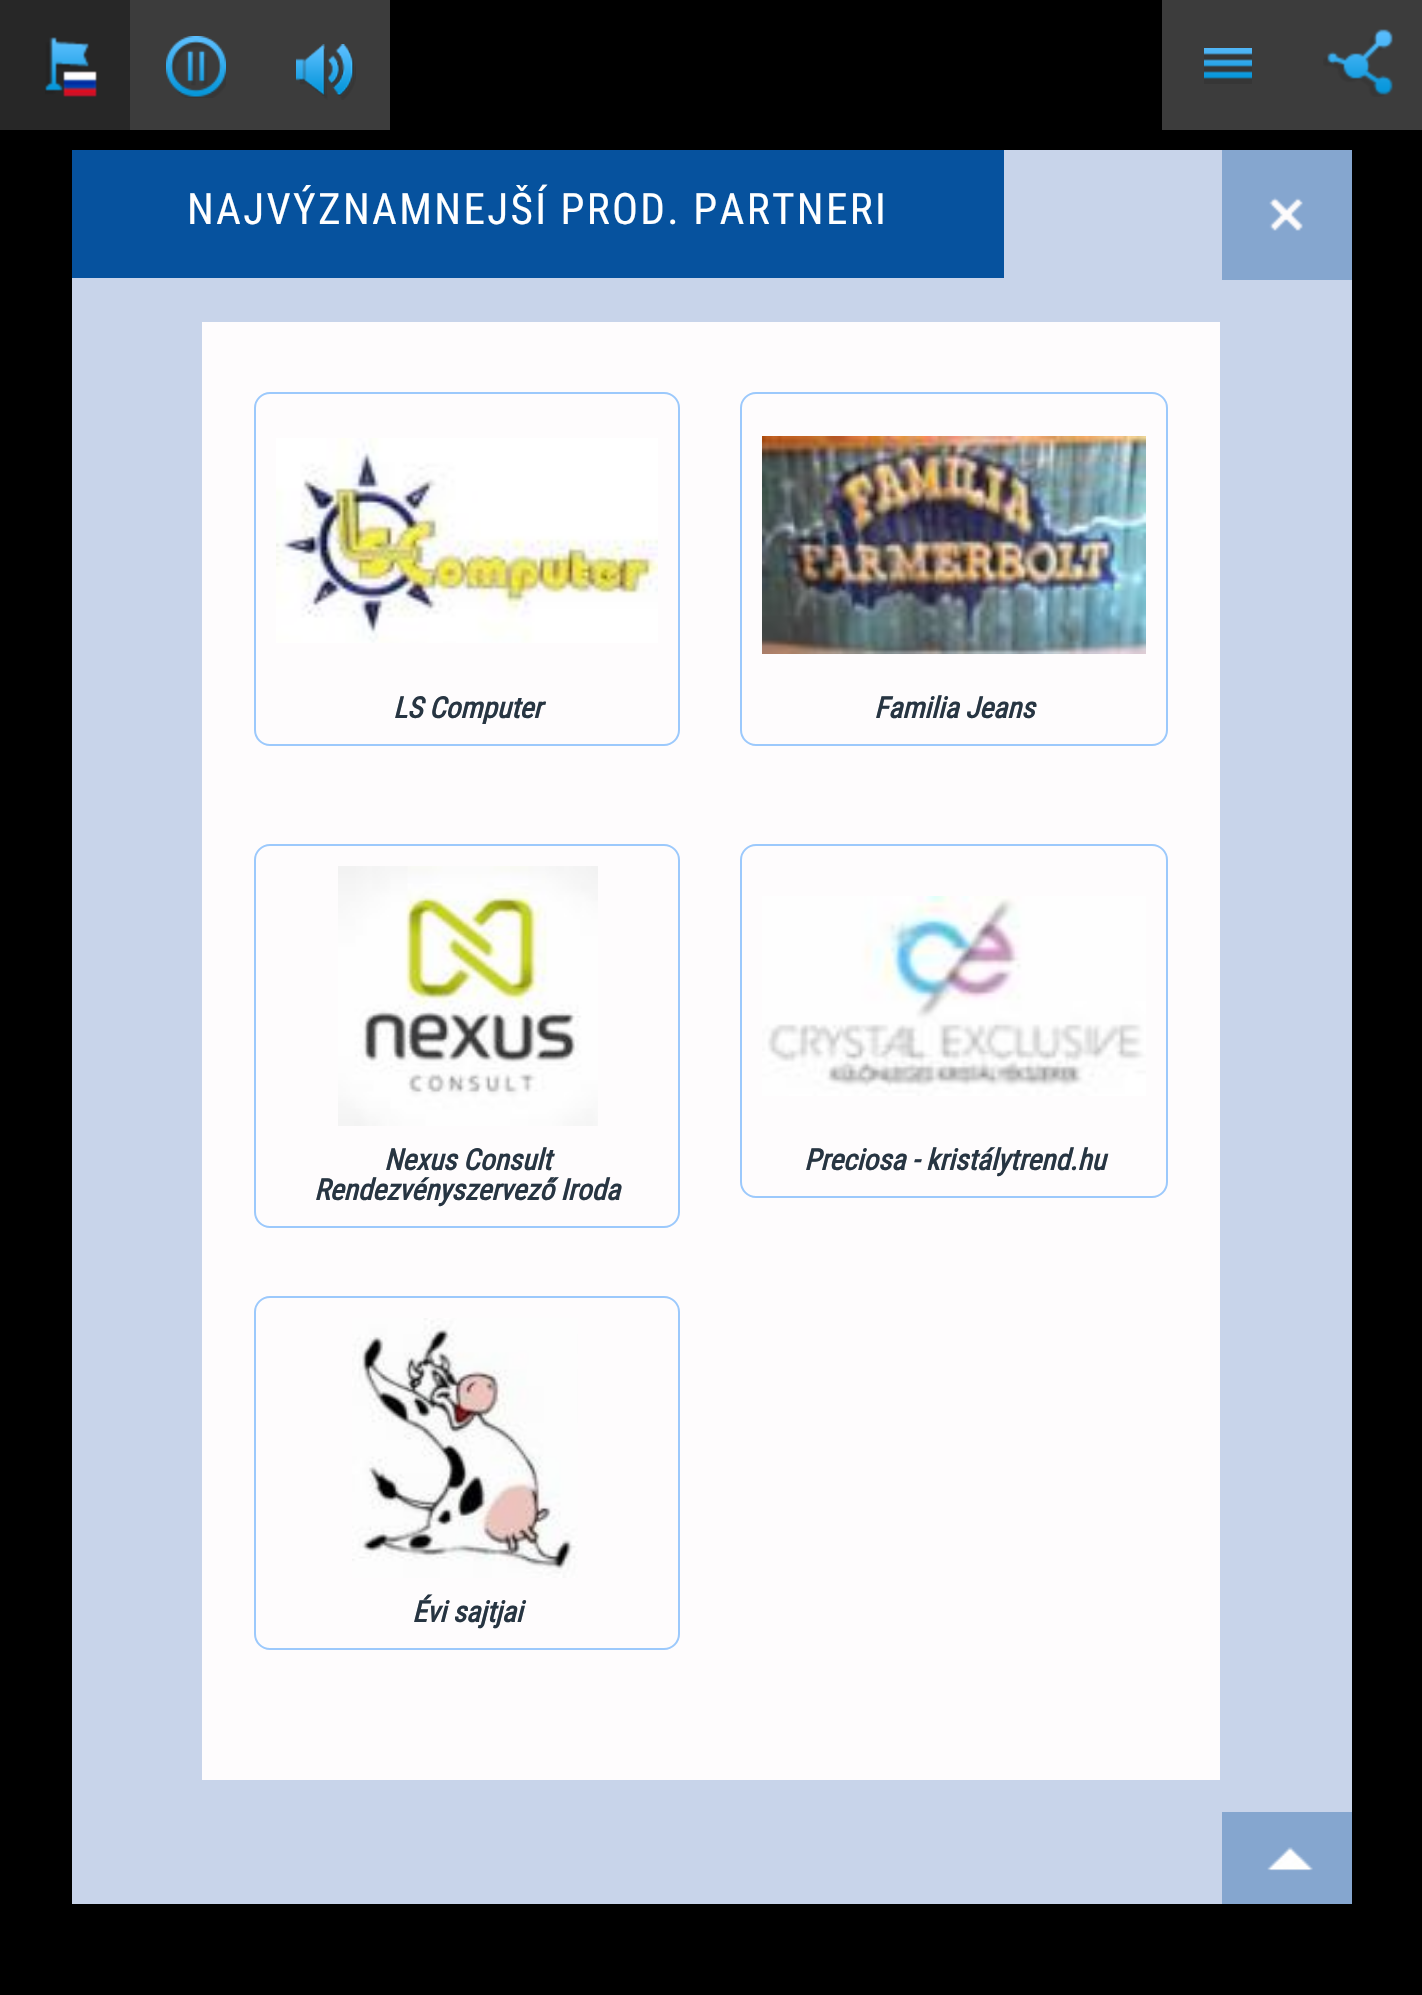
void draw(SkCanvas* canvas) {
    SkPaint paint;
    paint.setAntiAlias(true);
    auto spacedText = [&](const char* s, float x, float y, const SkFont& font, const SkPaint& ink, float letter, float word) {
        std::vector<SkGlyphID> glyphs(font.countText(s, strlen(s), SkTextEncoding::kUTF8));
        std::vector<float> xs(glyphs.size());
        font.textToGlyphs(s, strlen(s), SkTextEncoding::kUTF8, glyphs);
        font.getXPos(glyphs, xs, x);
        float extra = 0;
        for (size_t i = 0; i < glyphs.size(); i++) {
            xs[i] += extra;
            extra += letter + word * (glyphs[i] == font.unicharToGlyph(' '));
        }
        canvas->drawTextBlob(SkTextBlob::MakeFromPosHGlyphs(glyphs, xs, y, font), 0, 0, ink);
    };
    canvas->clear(0xFF000000);
    paint.setColor(0xFF272727);
    canvas->drawRect(SkRect::MakeXYWH(0, 0, 130, 130), paint);
    canvas->drawImageRect(SkImages::DeferredFromEncodedData(SkData::MakeFromFileName("img1.png")), SkRect::MakeXYWH(45, 37, 52, 60), SkSamplingOptions());
    paint.setColor(0xFF3C3C3C);
    canvas->drawRect(SkRect::MakeXYWH(130, 0, 260, 130), paint);
    canvas->drawImageRect(SkImages::DeferredFromEncodedData(SkData::MakeFromFileName("img2.png")), SkRect::MakeXYWH(166, 36, 60, 62), SkSamplingOptions());
    canvas->drawRect(SkRect::MakeXYWH(1162, 0, 260, 130), paint);
    canvas->drawImageRect(SkImages::DeferredFromEncodedData(SkData::MakeFromFileName("img3.png")), SkRect::MakeXYWH(1323, 29, 70, 68), SkSamplingOptions());
    canvas->drawImageRect(SkImages::DeferredFromEncodedData(SkData::MakeFromFileName("img4.png")), SkRect::MakeXYWH(296, 44, 60, 56), SkSamplingOptions());
    canvas->drawImageRect(SkImages::DeferredFromEncodedData(SkData::MakeFromFileName("img5.png")), SkRect::MakeXYWH(1204, 48, 48, 36), SkSamplingOptions());
    paint.setColor(0xFFC8D4EA);
    canvas->drawRect(SkRect::MakeXYWH(72, 150, 1280, 1754), paint);
    paint.setColor(0xFF06529E);
    canvas->drawRect(SkRect::MakeXYWH(72, 150, 932, 128), paint);
    SkFont font1(fontMgr->matchFamilyStyle("Roboto Condensed", SkFontStyle::Normal()), 43.25f);
    font1.setSubpixel(true);
    paint.setColor(0xFFFFFFFF);
    spacedText("NAJVÝZNAMNEJŠÍ PROD. PARTNERI", 187, 224, font1, paint, 2.3f, 0);
    paint.setColor(0xFF85A6CF);
    canvas->drawRect(SkRect::MakeXYWH(1222, 150, 130, 130), paint);
    canvas->drawImageRect(SkImages::DeferredFromEncodedData(SkData::MakeFromFileName("img6.png")), SkRect::MakeXYWH(1269, 197, 34, 34), SkSamplingOptions());
    paint.setColor(0xFFFEFCFD);
    canvas->drawRect(SkRect::MakeXYWH(202, 322, 1018, 1458), paint);
    paint.setStyle(SkPaint::kStroke_Style);
    paint.setStrokeWidth(2);
    paint.setColor(0xFF9CC9FC);
    canvas->drawRoundRect(SkRect::MakeXYWH(255, 393, 424, 352), 15, 15, paint);
    canvas->drawImageRect(SkImages::DeferredFromEncodedData(SkData::MakeFromFileName("img7.png")), SkRect::MakeXYWH(276, 438, 382, 205), SkSamplingOptions());
    SkFont font2(fontMgr->matchFamilyStyle("Roboto Condensed", SkFontStyle::BoldItalic()), 29.25f);
    font2.setSubpixel(true);
    paint.setStyle(SkPaint::kFill_Style);
    paint.setColor(0xFF273542);
    canvas->drawString("LS Computer", 393, 718, font2, paint);
    paint.setStyle(SkPaint::kStroke_Style);
    paint.setColor(0xFF9CC9FC);
    canvas->drawRoundRect(SkRect::MakeXYWH(741, 393, 426, 352), 15, 15, paint);
    canvas->drawImageRect(SkImages::DeferredFromEncodedData(SkData::MakeFromFileName("img8.png")), SkRect::MakeXYWH(762, 436, 384, 218), SkSamplingOptions());
    paint.setStyle(SkPaint::kFill_Style);
    paint.setColor(0xFF273542);
    canvas->drawString("Familia Jeans", 874, 718, font2, paint);
    paint.setStyle(SkPaint::kStroke_Style);
    paint.setColor(0xFF9CC9FC);
    canvas->drawRoundRect(SkRect::MakeXYWH(255, 845, 424, 382), 15, 15, paint);
    canvas->drawImageRect(SkImages::DeferredFromEncodedData(SkData::MakeFromFileName("img9.png")), SkRect::MakeXYWH(338, 866, 260, 260), SkSamplingOptions());
    paint.setStyle(SkPaint::kFill_Style);
    paint.setColor(0xFF273542);
    canvas->drawString("Nexus Consult", 384, 1170, font2, paint);
    canvas->drawString("Rendezvényszervező Iroda", 314, 1200, font2, paint);
    paint.setStyle(SkPaint::kStroke_Style);
    paint.setColor(0xFF9CC9FC);
    canvas->drawRoundRect(SkRect::MakeXYWH(741, 845, 426, 352), 15, 15, paint);
    canvas->drawImageRect(SkImages::DeferredFromEncodedData(SkData::MakeFromFileName("img10.png")), SkRect::MakeXYWH(762, 896, 384, 200), SkSamplingOptions());
    paint.setStyle(SkPaint::kFill_Style);
    paint.setColor(0xFF273542);
    canvas->drawString("Preciosa - kristálytrend.hu", 804, 1170, font2, paint);
    paint.setStyle(SkPaint::kStroke_Style);
    paint.setColor(0xFF9CC9FC);
    canvas->drawRoundRect(SkRect::MakeXYWH(255, 1297, 424, 352), 15, 15, paint);
    canvas->drawImageRect(SkImages::DeferredFromEncodedData(SkData::MakeFromFileName("img11.png")), SkRect::MakeXYWH(352, 1318, 226, 260), SkSamplingOptions());
    paint.setStyle(SkPaint::kFill_Style);
    paint.setColor(0xFF273542);
    canvas->drawString("Évi sajtjai", 412, 1622, font2, paint);
    paint.setColor(0xFF85A6CF);
    canvas->drawRect(SkRect::MakeXYWH(1222, 1812, 130, 92), paint);
    canvas->drawImageRect(SkImages::DeferredFromEncodedData(SkData::MakeFromFileName("img12.png")), SkRect::MakeXYWH(1267, 1847, 46, 24), SkSamplingOptions());
}
